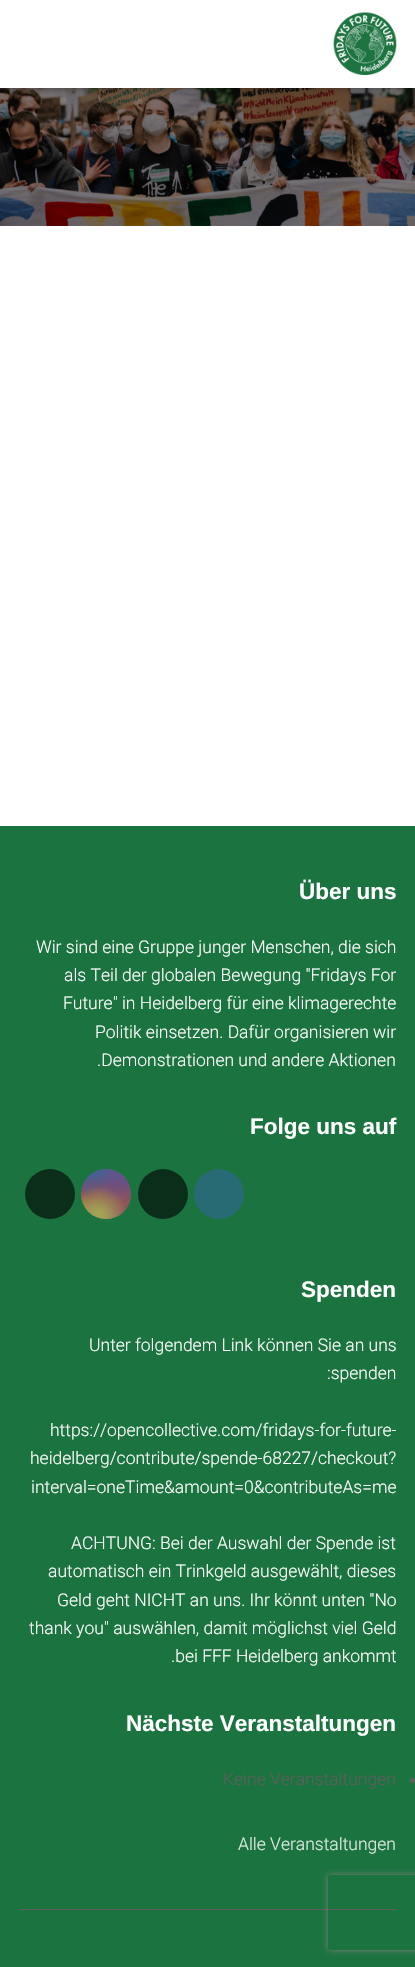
void draw(SkCanvas* canvas) {
    SkPaint paint;
    paint.setAntiAlias(true);
    canvas->clear(0xFFFFFFFF);
    canvas->drawImageRect(SkImages::DeferredFromEncodedData(SkData::MakeFromFileName("img2.png")), SkRect::MakeXYWH(0, 88, 415, 138), SkSamplingOptions());
    paint.setColor(0x1A000000);
    paint.setMaskFilter(SkMaskFilter::MakeBlur(kNormal_SkBlurStyle, 3));
    canvas->drawRect(SkRect::MakeXYWH(3, 8, 410, 82), paint);
    paint.setMaskFilter(nullptr);
    paint.setColor(0x1F000000);
    paint.setMaskFilter(SkMaskFilter::MakeBlur(kNormal_SkBlurStyle, 6));
    canvas->drawRect(SkRect::MakeXYWH(0, 1, 415, 88), paint);
    paint.setMaskFilter(nullptr);
    paint.setColor(0x6B000000);
    paint.setMaskFilter(SkMaskFilter::MakeBlur(kNormal_SkBlurStyle, 6));
    canvas->drawRect(SkRect::MakeXYWH(8, 9, 400, 72), paint);
    paint.setMaskFilter(nullptr);
    paint.setColor(0xFFFFFFFF);
    canvas->drawRect(SkRect::MakeXYWH(0, 0, 415, 88), paint);
    canvas->drawImageRect(SkImages::DeferredFromEncodedData(SkData::MakeFromFileName("img1.png")), SkRect::MakeXYWH(333, 12, 64, 63), SkSamplingOptions());
    paint.setColor(0xFF1B7340);
    canvas->drawRect(SkRect::MakeXYWH(0, 826, 415, 1141), paint);
    SkFont font1(fontMgr->matchFamilyStyle("Liberation Sans", SkFontStyle::Bold()), 22.5f);
    font1.setSubpixel(true);
    paint.setColor(0xFFFFFFFF);
    canvas->drawString("Über uns", 299, 899, font1, paint);
    SkFont font2(fontMgr->matchFamilyStyle("Roboto", SkFontStyle(300, SkFontStyle::kNormal_Width, SkFontStyle::kUpright_Slant)), 17.5f);
    font2.setSubpixel(true);
    canvas->drawString("Wir sind eine Gruppe junger Menschen, die sich", 36, 953, font2, paint);
    canvas->drawString("als Teil der globalen Bewegung \"Fridays For", 64, 981, font2, paint);
    canvas->drawString("Future\" in Heidelberg für eine klimagerechte", 63, 1009, font2, paint);
    canvas->drawString("Politik einsetzen. Dafür organisieren wir", 95, 1038, font2, paint);
    canvas->drawString(".Demonstrationen und andere Aktionen", 97, 1066, font2, paint);
    canvas->drawString("Folge uns auf", 250, 1134, font1, paint);
    paint.setColor(0xFF0B2E1A);
    canvas->drawCircle(50, 1194, 25, paint);
    {
        const SkColor colors[] = {0xFF476393, 0xFF7C4B6F, 0xFF935453, 0xFF9F753B, 0xFFA3A55B};
        const float stops[] = {0, 0.3f, 0.5f, 0.7f, 1};
        const SkPoint ends[] = {{106, 1169}, {106, 1219}};
        paint.setShader(SkGradientShader::MakeLinear(ends, colors, stops, 5, SkTileMode::kClamp));
        paint.setAlpha(255);
    }
    canvas->drawCircle(106, 1194, 25, paint);
    {
        const SkColor colors[] = {0xFF8D4B63, 0x008D4B63};
        const float stops[] = {0, 1};
        paint.setShader(SkGradientShader::MakeRadial({131, 1219}, 71, colors, stops, 2, SkTileMode::kClamp));
        paint.setAlpha(255);
    }
    canvas->drawCircle(106, 1194, 25, paint);
    {
        const SkColor colors[] = {0xFF5D538E, 0x005D538E};
        const float stops[] = {0, 0.5f};
        SkMatrix m = SkMatrix::Translate(111, 1159).preScale(42, 85);
        paint.setShader(SkGradientShader::MakeRadial({0, 0}, 1, colors, stops, 2, SkTileMode::kClamp, 0, &m));
        paint.setAlpha(255);
    }
    canvas->drawCircle(106, 1194, 25, paint);
    {
        const SkColor colors[] = {0xFF5D538E, 0x005D538E};
        const float stops[] = {0, 0.5f};
        paint.setShader(SkGradientShader::MakeRadial({131, 1169}, 71, colors, stops, 2, SkTileMode::kClamp));
        paint.setAlpha(255);
    }
    canvas->drawCircle(106, 1194, 25, paint);
    {
        const SkColor colors[] = {0xFF3C6396, 0x003C6396};
        const float stops[] = {0, 0.5f};
        SkMatrix m = SkMatrix::Translate(91, 1144).preScale(57, 106);
        paint.setShader(SkGradientShader::MakeRadial({0, 0}, 1, colors, stops, 2, SkTileMode::kClamp, 0, &m));
        paint.setAlpha(255);
    }
    canvas->drawCircle(106, 1194, 25, paint);
    {
        const SkColor colors[] = {0xFF3C6396, 0x003C6396};
        const float stops[] = {0, 0.5f};
        SkMatrix m = SkMatrix::Translate(81, 1156).preScale(71, 88);
        paint.setShader(SkGradientShader::MakeRadial({0, 0}, 1, colors, stops, 2, SkTileMode::kClamp, 0, &m));
        paint.setAlpha(255);
    }
    canvas->drawCircle(106, 1194, 25, paint);
    {
        const SkColor colors[] = {0xFFA3A456, 0x00A3A456};
        const float stops[] = {0, 0.5f};
        paint.setShader(SkGradientShader::MakeRadial({81, 1239}, 86, colors, stops, 2, SkTileMode::kClamp));
        paint.setAlpha(255);
    }
    canvas->drawCircle(106, 1194, 25, paint);
    {
        const SkColor colors[] = {0xFFA3A456, 0x00A3A456};
        const float stops[] = {0, 0.5f};
        paint.setShader(SkGradientShader::MakeRadial({99, 1214}, 56, colors, stops, 2, SkTileMode::kClamp));
        paint.setAlpha(255);
    }
    canvas->drawCircle(106, 1194, 25, paint);
    paint.setShader(nullptr);
    paint.setColor(0xFF0B2E1A);
    canvas->drawCircle(163, 1194, 25, paint);
    paint.setColor(0xFF296B75);
    canvas->drawCircle(219, 1194, 25, paint);
    paint.setColor(0xFFFFFFFF);
    canvas->drawString("Spenden", 301, 1297, font1, paint);
    canvas->drawString("Unter folgendem Link können Sie an uns", 89, 1351, font2, paint);
    canvas->drawString(":spenden", 327, 1379, font2, paint);
    canvas->drawString("https://opencollective.com/fridays-for-future-", 50, 1436, font2, paint);
    canvas->drawString("heidelberg/contribute/spende-68227/checkout?", 30, 1464, font2, paint);
    canvas->drawString("interval=oneTime&amount=0&contributeAs=me", 31, 1493, font2, paint);
    canvas->drawString("ACHTUNG: Bei der Auswahl der Spende ist", 71, 1549, font2, paint);
    canvas->drawString("automatisch ein Trinkgeld ausgewählt, dieses", 48, 1577, font2, paint);
    canvas->drawString("Geld geht NICHT an uns. Ihr könnt unten \"No", 57, 1606, font2, paint);
    canvas->drawString("thank you\" auswählen, damit möglichst viel Geld", 29, 1634, font2, paint);
    canvas->drawString(".bei FFF Heidelberg ankommt", 171, 1662, font2, paint);
    canvas->drawString("Nächste Veranstaltungen", 126, 1731, font1, paint);
    paint.setColor(0xFF5E5E5E);
    canvas->drawString("Keine Veranstaltungen", 223, 1785, font2, paint);
    canvas->drawCircle(412.5f, 1780.5f, 2.5f, paint);
    paint.setColor(0xFFDFEBE4);
    canvas->drawString("Alle Veranstaltungen", 238, 1850, font2, paint);
    paint.setColor(0xFF5E5E5E);
    canvas->drawRect(SkRect::MakeXYWH(19, 1909, 377, 1), paint);
    canvas->save();
    canvas->clipPath(SkPathBuilder(SkPathFillType::kEvenOdd).moveTo(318, 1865).lineTo(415, 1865).lineTo(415, 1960).lineTo(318, 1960).close().moveTo(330.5f, 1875).lineTo(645.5f, 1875).cubicTo(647, 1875, 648, 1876, 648, 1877.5f).lineTo(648, 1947.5f).cubicTo(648, 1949, 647, 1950, 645.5f, 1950).lineTo(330.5f, 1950).cubicTo(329, 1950, 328, 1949, 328, 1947.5f).lineTo(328, 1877.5f).cubicTo(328, 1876, 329, 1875, 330.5f, 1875).close().detach(), true);
    paint.setColor(0xFF808080);
    paint.setMaskFilter(SkMaskFilter::MakeBlur(kNormal_SkBlurStyle, 3));
    canvas->drawRoundRect(SkRect::MakeXYWH(328, 1875, 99, 75), 2.5f, 2.5f, paint);
    paint.setMaskFilter(nullptr);
    canvas->restore();
}
